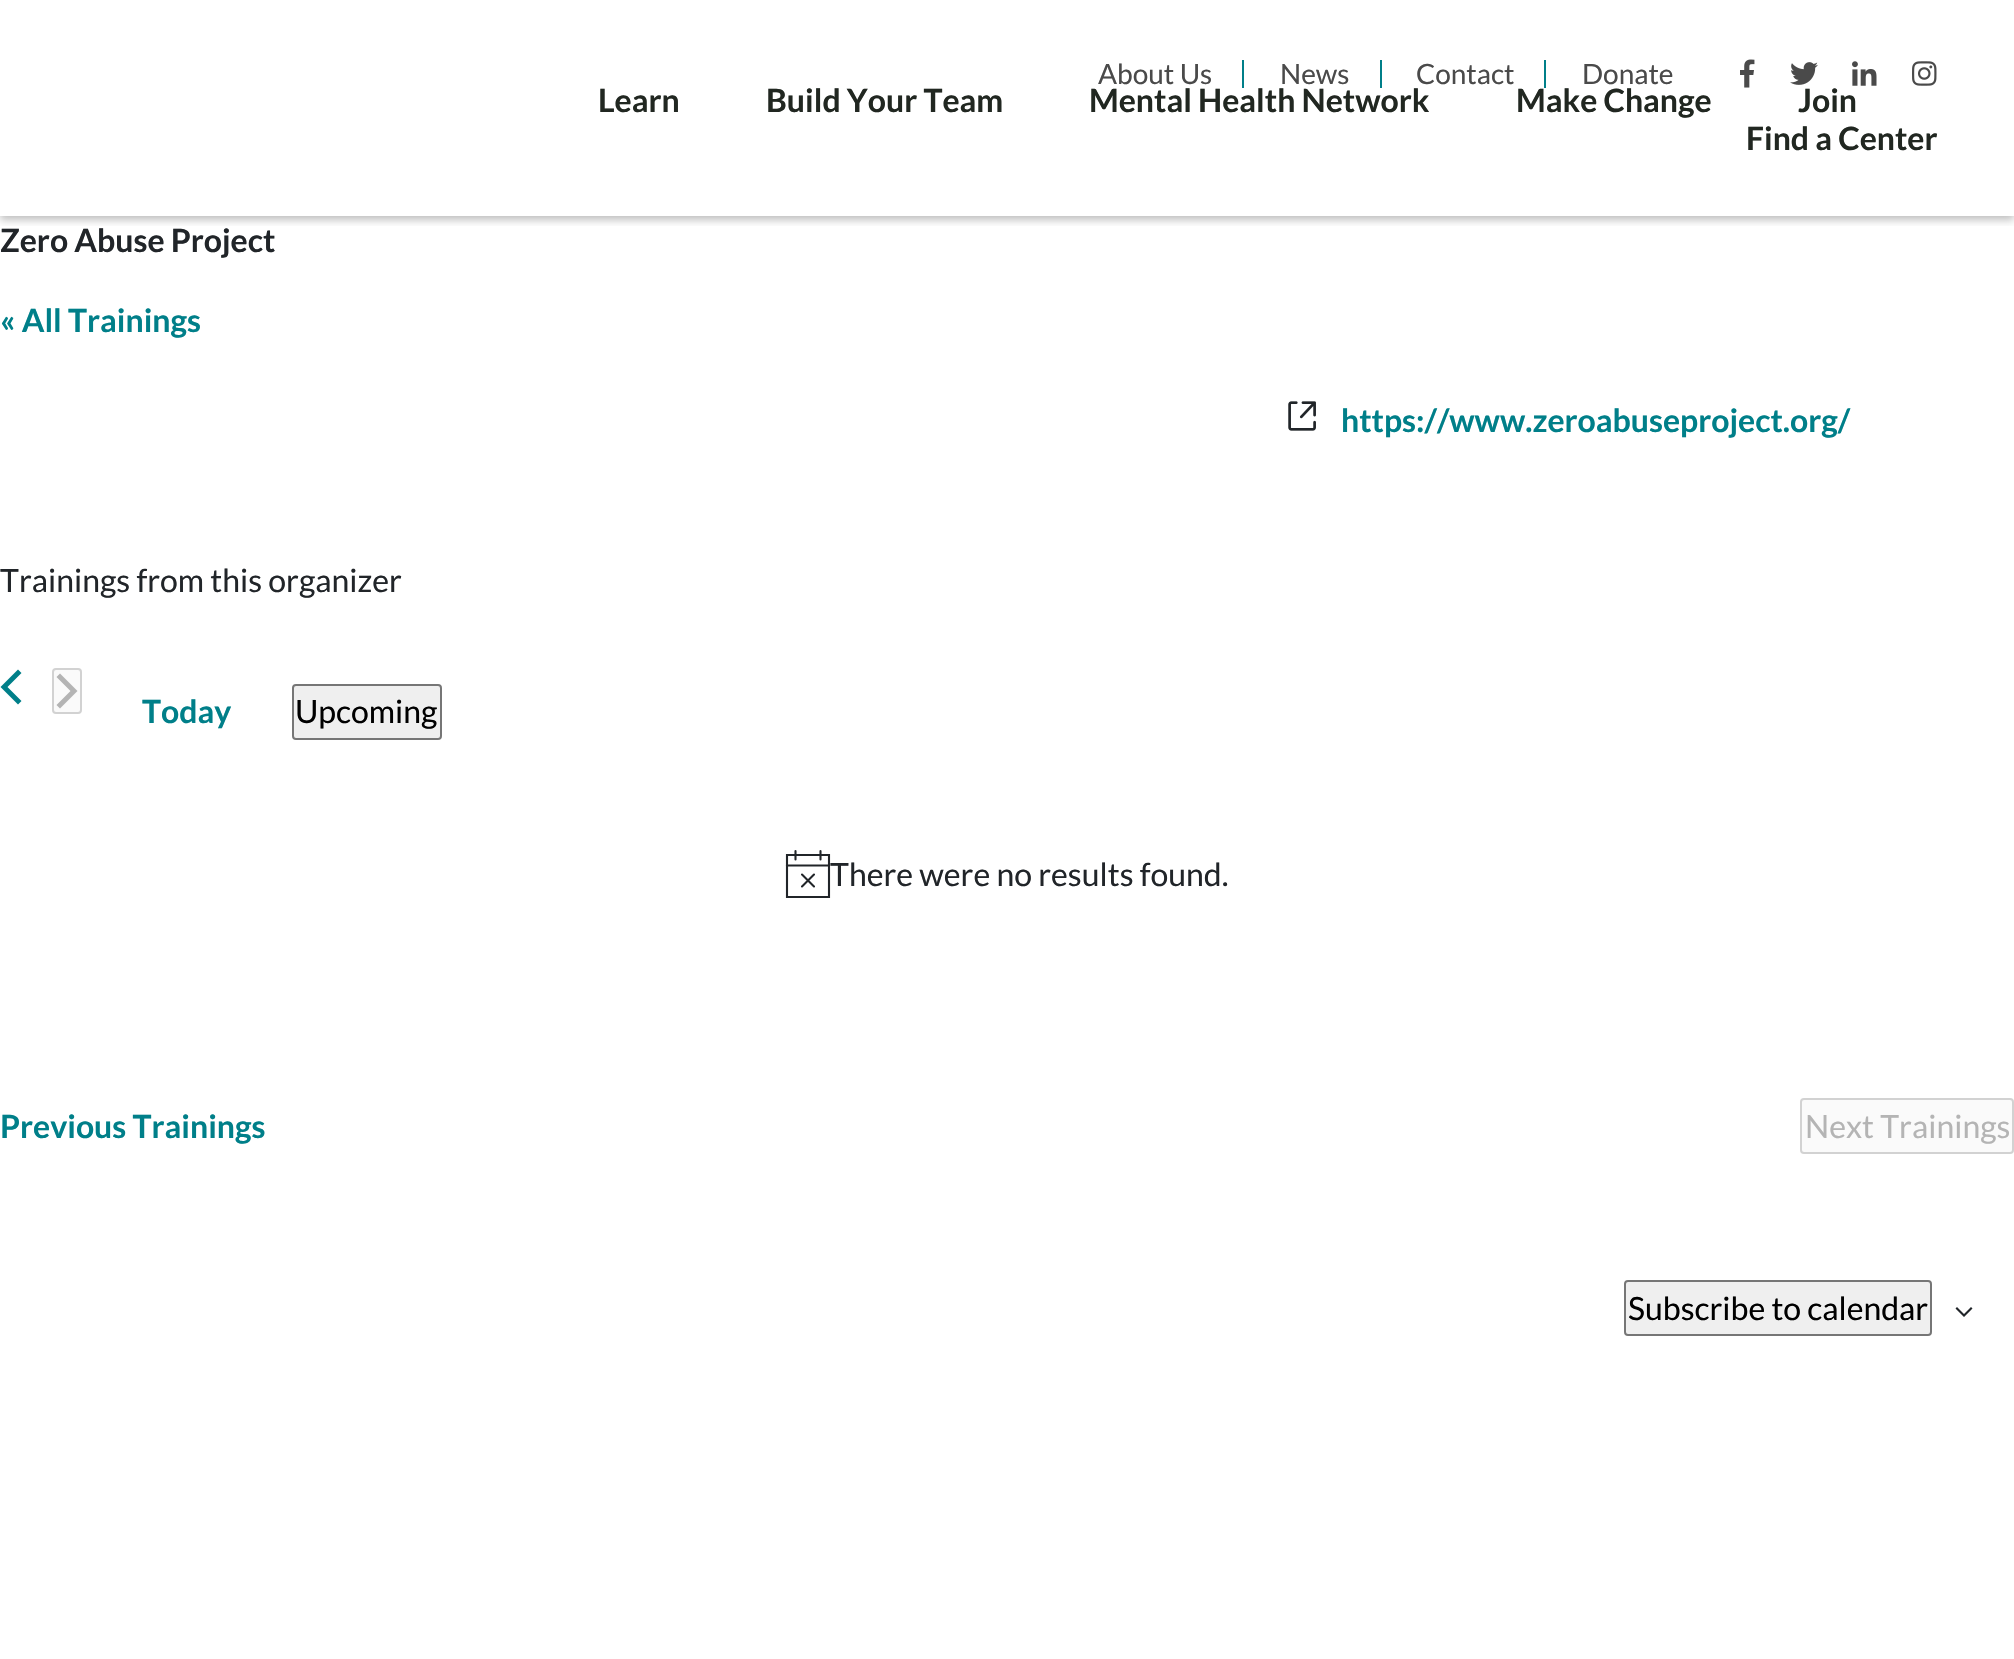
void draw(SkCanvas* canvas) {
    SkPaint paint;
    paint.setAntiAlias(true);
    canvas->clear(0xFFFFFFFF);
    canvas->save();
    canvas->clipRect(SkRect::MakeXYWH(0, 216, 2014, 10));
    paint.setColor(0x40000000);
    paint.setMaskFilter(SkMaskFilter::MakeBlur(kNormal_SkBlurStyle, 4));
    canvas->drawRect(SkRect::MakeXYWH(0, 4, 2014, 216), paint);
    paint.setMaskFilter(nullptr);
    canvas->restore();
    paint.setColor(0xFF007F89);
    canvas->drawRect(SkRect::MakeXYWH(1242, 60, 2, 28), paint);
    SkFont font1(fontMgr->matchFamilyStyle("Lato", SkFontStyle::Normal()), 28);
    font1.setSubpixel(true);
    paint.setColor(0xFF4A4A4A);
    canvas->drawString("About Us", 1098, 84, font1, paint);
    paint.setColor(0xFF007F89);
    canvas->drawRect(SkRect::MakeXYWH(1380, 60, 2, 28), paint);
    paint.setColor(0xFF4A4A4A);
    canvas->drawString("News", 1280, 84, font1, paint);
    paint.setColor(0xFF007F89);
    canvas->drawRect(SkRect::MakeXYWH(1544, 60, 2, 28), paint);
    paint.setColor(0xFF4A4A4A);
    canvas->drawString("Contact", 1416, 84, font1, paint);
    canvas->drawString("Donate", 1582, 84, font1, paint);
    canvas->drawImageRect(SkImages::DeferredFromEncodedData(SkData::MakeFromFileName("img1.png")), SkRect::MakeXYWH(1740, 59, 15, 29), SkSamplingOptions());
    canvas->drawImageRect(SkImages::DeferredFromEncodedData(SkData::MakeFromFileName("img2.png")), SkRect::MakeXYWH(1790, 62, 28, 23), SkSamplingOptions());
    canvas->drawImageRect(SkImages::DeferredFromEncodedData(SkData::MakeFromFileName("img3.png")), SkRect::MakeXYWH(1852, 61, 25, 25), SkSamplingOptions());
    canvas->drawImageRect(SkImages::DeferredFromEncodedData(SkData::MakeFromFileName("img4.png")), SkRect::MakeXYWH(1912, 61, 25, 25), SkSamplingOptions());
    SkFont font2(fontMgr->matchFamilyStyle("Lato", SkFontStyle::Bold()), 32);
    font2.setSubpixel(true);
    paint.setColor(0xFF212721);
    canvas->drawString("Learn", 598, 112, font2, paint);
    canvas->drawString("Build Your Team", 766, 112, font2, paint);
    canvas->drawString("Mental Health Network", 1089, 112, font2, paint);
    canvas->drawString("Make Change", 1516, 112, font2, paint);
    canvas->drawString("Join", 1798, 112, font2, paint);
    canvas->drawString("Find a Center", 1746, 150, font2, paint);
    paint.setColor(0xFF212529);
    canvas->drawString("Zero Abuse Project", 0, 252, font2, paint);
    paint.setColor(0xFF007F89);
    canvas->drawString("« All Trainings", 0, 332, font2, paint);
    canvas->drawImageRect(SkImages::DeferredFromEncodedData(SkData::MakeFromFileName("img5.png")), SkRect::MakeXYWH(1288, 401, 28, 30), SkSamplingOptions());
    canvas->drawString("https://www.zeroabuseproject.org/", 1341, 432, font2, paint);
    SkFont font3(fontMgr->matchFamilyStyle("Lato", SkFontStyle::Normal()), 32);
    font3.setSubpixel(true);
    paint.setColor(0xFF212529);
    canvas->drawString("Trainings from this organizer", 0, 592, font3, paint);
    paint.setColor(0xFF007F89);
    canvas->drawPath(SkPathBuilder().moveTo(21.5f, 701).lineTo(18, 704.5f).lineTo(0.5f, 687).lineTo(18, 669.5f).lineTo(21.5f, 673).lineTo(7.5f, 687).close().detach(), paint);
    paint.setColor(0xFFFAFAFA);
    canvas->drawRoundRect(SkRect::MakeXYWH(53, 669, 28, 44), 3, 3, paint);
    paint.setStyle(SkPaint::kStroke_Style);
    paint.setStrokeWidth(2);
    paint.setColor(0xFFD2D2D2);
    canvas->drawRoundRect(SkRect::MakeXYWH(53, 669, 28, 44), 3, 3, paint);
    paint.setStyle(SkPaint::kFill_Style);
    paint.setColor(0xFFB4B4B4);
    canvas->drawPath(SkPathBuilder().moveTo(56.5f, 677).lineTo(60, 673.5f).lineTo(77.5f, 691).lineTo(60, 708.5f).lineTo(56.5f, 705).lineTo(70.5f, 691).close().detach(), paint);
    paint.setColor(0xFF007F89);
    canvas->drawString("Today", 142, 723, font2, paint);
    paint.setColor(0xFFEFEFEF);
    canvas->drawRoundRect(SkRect::MakeXYWH(293, 685, 148, 54), 3, 3, paint);
    paint.setStyle(SkPaint::kStroke_Style);
    paint.setColor(0xFF767676);
    canvas->drawRoundRect(SkRect::MakeXYWH(293, 685, 148, 54), 3, 3, paint);
    paint.setStyle(SkPaint::kFill_Style);
    paint.setColor(0xFF000000);
    canvas->drawString("Upcoming", 295, 723, font3, paint);
    paint.setStyle(SkPaint::kStroke_Style);
    paint.setStrokeWidth(2.1f);
    paint.setColor(0xFF212529);
    canvas->drawPath(SkPathBuilder().moveTo(787, 855).lineTo(829, 855).lineTo(829, 897).lineTo(787, 897).close().detach(), paint);
    paint.setStrokeCap(SkPaint::kRound_Cap);
    canvas->drawPath(SkPathBuilder().moveTo(802, 874.5f).lineTo(814, 886.5f).moveTo(814, 874.5f).lineTo(802, 886.5f).moveTo(795.5f, 851).lineTo(795.5f, 859.5f).moveTo(820.5f, 851).lineTo(820.5f, 859.5f).detach(), paint);
    paint.setStrokeCap(SkPaint::kSquare_Cap);
    canvas->drawPath(SkPathBuilder().moveTo(787, 865.5f).lineTo(829, 865.5f).detach(), paint);
    paint.setStyle(SkPaint::kFill_Style);
    canvas->drawString("There were no results found.", 830, 886, font3, paint);
    paint.setColor(0xFF007F89);
    canvas->drawString("Previous Trainings", 0, 1138, font2, paint);
    paint.setColor(0xFFFAFAFA);
    canvas->drawRoundRect(SkRect::MakeXYWH(1801, 1099, 212, 54), 3, 3, paint);
    paint.setStyle(SkPaint::kStroke_Style);
    paint.setStrokeWidth(2);
    paint.setStrokeCap(SkPaint::kButt_Cap);
    paint.setColor(0xFFD2D2D2);
    canvas->drawRoundRect(SkRect::MakeXYWH(1801, 1099, 212, 54), 3, 3, paint);
    paint.setStyle(SkPaint::kFill_Style);
    paint.setColor(0xFFB4B4B4);
    canvas->drawString("Next Trainings", 1805, 1138, font3, paint);
    paint.setColor(0xFFEFEFEF);
    canvas->drawRoundRect(SkRect::MakeXYWH(1625, 1281, 306, 54), 3, 3, paint);
    paint.setStyle(SkPaint::kStroke_Style);
    paint.setColor(0xFF767676);
    canvas->drawRoundRect(SkRect::MakeXYWH(1625, 1281, 306, 54), 3, 3, paint);
    paint.setStyle(SkPaint::kFill_Style);
    paint.setColor(0xFF000000);
    canvas->drawString("Subscribe to calendar", 1628, 1320, font3, paint);
    paint.setColor(0xFF212529);
    canvas->drawPath(SkPathBuilder(SkPathFillType::kEvenOdd).moveTo(1957, 1307).lineTo(1964, 1314).lineTo(1971, 1307).lineTo(1972.5f, 1308.5f).lineTo(1964, 1317).lineTo(1955.5f, 1308.5f).close().detach(), paint);
}
